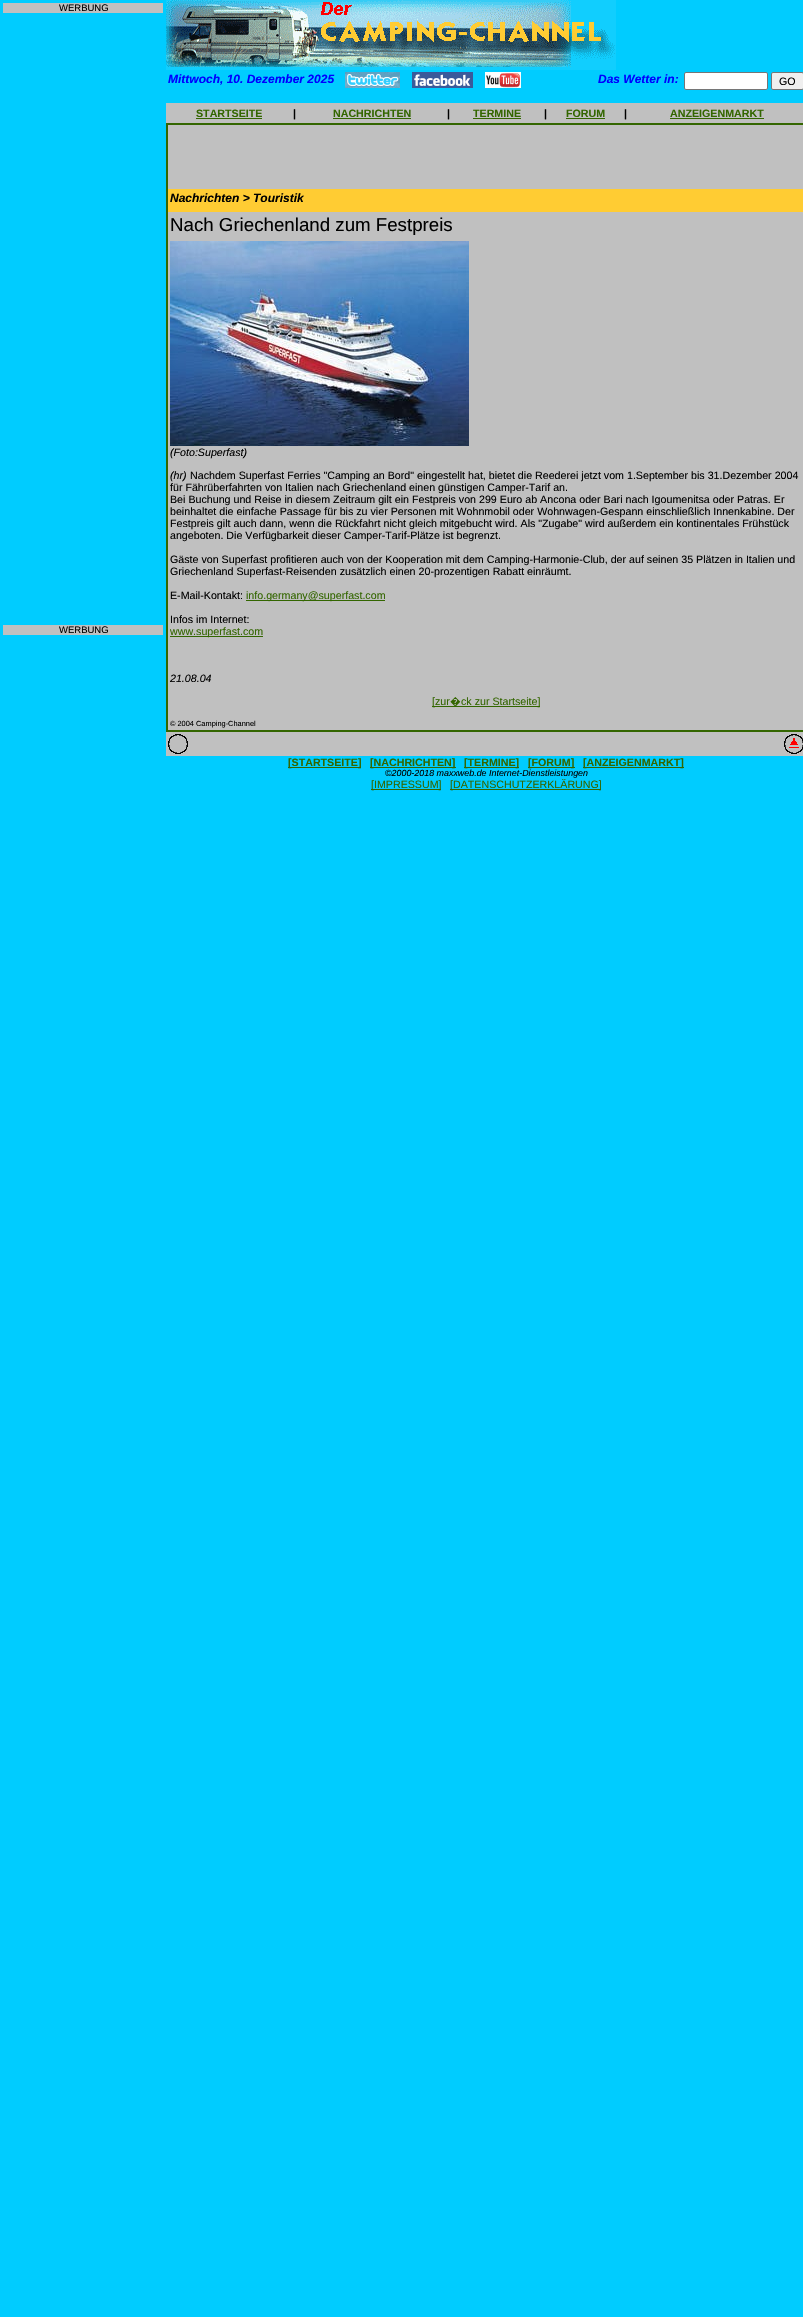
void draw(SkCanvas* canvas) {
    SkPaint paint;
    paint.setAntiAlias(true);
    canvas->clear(0xFF00CCFF);
    paint.setColor(0xFFC0C0C0);
    canvas->drawRect(SkRect::MakeXYWH(3, 3, 160, 10), paint);
    SkFont font1(fontMgr->matchFamilyStyle("Liberation Sans", SkFontStyle::Normal()), 9.5f);
    font1.setSubpixel(true);
    paint.setColor(0xFF000000);
    canvas->drawString("WERBUNG", 59, 11, font1, paint);
    paint.setColor(0xFFC0C0C0);
    canvas->drawRect(SkRect::MakeXYWH(3, 625, 160, 10), paint);
    paint.setColor(0xFF000000);
    canvas->drawString("WERBUNG", 59, 633, font1, paint);
    canvas->drawImageRect(SkImages::DeferredFromEncodedData(SkData::MakeFromFileName("img1.png")), SkRect::MakeXYWH(166, 0, 450, 70), SkSamplingOptions());
    SkFont font2(fontMgr->matchFamilyStyle("Liberation Sans", SkFontStyle::BoldItalic()), 12);
    font2.setSubpixel(true);
    paint.setColor(0xFF0000FF);
    canvas->drawString("Mittwoch, 10. Dezember 2025", 168, 83, font2, paint);
    canvas->drawImageRect(SkImages::DeferredFromEncodedData(SkData::MakeFromFileName("img2.png")), SkRect::MakeXYWH(345, 72, 55, 16), SkSamplingOptions());
    canvas->drawImageRect(SkImages::DeferredFromEncodedData(SkData::MakeFromFileName("img3.png")), SkRect::MakeXYWH(412, 72, 61, 16), SkSamplingOptions());
    canvas->drawImageRect(SkImages::DeferredFromEncodedData(SkData::MakeFromFileName("img4.png")), SkRect::MakeXYWH(485, 72, 36, 16), SkSamplingOptions());
    canvas->drawString("Das Wetter in:", 598, 83, font2, paint);
    paint.setColor(0xFFFFFFFF);
    canvas->drawRoundRect(SkRect::MakeXYWH(684.5f, 72.5f, 83, 17), 1.5f, 1.5f, paint);
    paint.setStyle(SkPaint::kStroke_Style);
    paint.setStrokeWidth(1);
    paint.setColor(0xFF767676);
    canvas->drawRoundRect(SkRect::MakeXYWH(684.5f, 72.5f, 83, 17), 1.5f, 1.5f, paint);
    paint.setStyle(SkPaint::kFill_Style);
    paint.setColor(0xFFEFEFEF);
    canvas->drawRoundRect(SkRect::MakeXYWH(771.5f, 72.5f, 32, 17), 1.5f, 1.5f, paint);
    paint.setStyle(SkPaint::kStroke_Style);
    paint.setColor(0xFF767676);
    canvas->drawRoundRect(SkRect::MakeXYWH(771.5f, 72.5f, 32, 17), 1.5f, 1.5f, paint);
    SkFont font3(fontMgr->matchFamilyStyle("Liberation Sans", SkFontStyle::Normal()), 10.67f);
    font3.setSubpixel(true);
    paint.setStyle(SkPaint::kFill_Style);
    paint.setColor(0xFF000000);
    canvas->drawString("GO", 779, 85, font3, paint);
    paint.setColor(0xFFC0C0C0);
    canvas->drawRect(SkRect::MakeXYWH(166, 103, 637, 20), paint);
    SkFont font4(fontMgr->matchFamilyStyle("Liberation Sans", SkFontStyle::Bold()), 10.67f);
    font4.setSubpixel(true);
    paint.setColor(0xFF336600);
    canvas->drawString("STARTSEITE", 196, 117, font4, paint);
    canvas->drawRect(SkRect::MakeXYWH(196, 118, 66, 1), paint);
    paint.setColor(0xFF000000);
    canvas->drawString("|", 293, 117, font4, paint);
    paint.setColor(0xFF336600);
    canvas->drawString("NACHRICHTEN", 333, 117, font4, paint);
    canvas->drawRect(SkRect::MakeXYWH(333, 118, 78, 1), paint);
    paint.setColor(0xFF000000);
    canvas->drawString("|", 447, 117, font4, paint);
    paint.setColor(0xFF336600);
    canvas->drawString("TERMINE", 473, 117, font4, paint);
    canvas->drawRect(SkRect::MakeXYWH(473, 118, 48, 1), paint);
    paint.setColor(0xFF000000);
    canvas->drawString("|", 544, 117, font4, paint);
    paint.setColor(0xFF336600);
    canvas->drawString("FORUM", 566, 117, font4, paint);
    canvas->drawRect(SkRect::MakeXYWH(566, 118, 39, 1), paint);
    paint.setColor(0xFF000000);
    canvas->drawString("|", 624, 117, font4, paint);
    paint.setColor(0xFF336600);
    canvas->drawString("ANZEIGENMARKT", 670, 117, font4, paint);
    canvas->drawRect(SkRect::MakeXYWH(670, 118, 94, 1), paint);
    canvas->drawRect(SkRect::MakeXYWH(166, 123, 637, 609), paint);
    paint.setColor(0xFFC0C0C0);
    canvas->drawRect(SkRect::MakeXYWH(168, 125, 635, 605), paint);
    paint.setColor(0xFFFFCC33);
    canvas->drawRect(SkRect::MakeXYWH(168, 189, 635, 23), paint);
    paint.setColor(0xFF000000);
    canvas->drawString("Nachrichten > Touristik", 170, 202, font2, paint);
    SkFont font5(fontMgr->matchFamilyStyle("Liberation Sans", SkFontStyle::Normal()), 18.7f);
    font5.setSubpixel(true);
    canvas->drawString("Nach Griechenland zum Festpreis", 170, 231, font5, paint);
    canvas->drawImageRect(SkImages::DeferredFromEncodedData(SkData::MakeFromFileName("img5.png")), SkRect::MakeXYWH(170, 241, 299, 205), SkSamplingOptions());
    SkFont font6(fontMgr->matchFamilyStyle("Liberation Sans", SkFontStyle::Italic()), 10.67f);
    font6.setSubpixel(true);
    canvas->drawString("(Foto:Superfast)", 170, 456, font6, paint);
    canvas->drawString("(hr)", 170, 479, font6, paint);
    canvas->drawString("Nachdem Superfast Ferries \"Camping an Bord\" eingestellt hat, bietet die Reederei jetzt vom 1.September bis 31.Dezember 2004", 190, 479, font3, paint);
    canvas->drawString("für Fährüberfahrten von Italien nach Griechenland einen günstigen Camper-Tarif an.", 170, 491, font3, paint);
    canvas->drawString("Bei Buchung und Reise in diesem Zeitraum gilt ein Festpreis von 299 Euro ab Ancona oder Bari nach Igoumenitsa oder Patras. Er", 170, 503, font3, paint);
    canvas->drawString("beinhaltet die einfache Passage für bis zu vier Personen mit Wohnmobil oder Wohnwagen-Gespann einschließlich Innenkabine. Der", 170, 515, font3, paint);
    canvas->drawString("Festpreis gilt auch dann, wenn die Rückfahrt nicht gleich mitgebucht wird. Als \"Zugabe\" wird außerdem ein kontinentales Frühstück", 170, 527, font3, paint);
    canvas->drawString("angeboten. Die Verfügbarkeit dieser Camper-Tarif-Plätze ist begrenzt.", 170, 539, font3, paint);
    canvas->drawString("Gäste von Superfast profitieren auch von der Kooperation mit dem Camping-Harmonie-Club, der auf seinen 35 Plätzen in Italien und", 170, 563, font3, paint);
    canvas->drawString("Griechenland Superfast-Reisenden zusätzlich einen 20-prozentigen Rabatt einräumt.", 170, 575, font3, paint);
    canvas->drawString("E-Mail-Kontakt:", 170, 599, font3, paint);
    paint.setColor(0xFF336600);
    canvas->drawRect(SkRect::MakeXYWH(246, 600, 139, 1), paint);
    canvas->drawString("info.germany@superfast.com", 246, 599, font3, paint);
    paint.setColor(0xFF000000);
    canvas->drawString("Infos im Internet:", 170, 623, font3, paint);
    paint.setColor(0xFF336600);
    canvas->drawRect(SkRect::MakeXYWH(170, 636, 93, 1), paint);
    canvas->drawString("www.superfast.com", 170, 635, font3, paint);
    paint.setColor(0xFF000000);
    canvas->drawString("21.08.04", 170, 682, font6, paint);
    paint.setColor(0xFF336600);
    canvas->drawRect(SkRect::MakeXYWH(432, 706, 108, 1), paint);
    canvas->drawString("[zur", 432, 705, font3, paint);
    SkFont font7(fontMgr->matchFamilyStyle("Noto Sans", SkFontStyle::Normal()), 10.67f);
    font7.setSubpixel(true);
    canvas->drawString("�", 450, 705, font7, paint);
    canvas->drawString("ck zur Startseite]", 461, 705, font3, paint);
    SkFont font8(fontMgr->matchFamilyStyle("Liberation Sans", SkFontStyle::Normal()), 7.4f);
    font8.setSubpixel(true);
    paint.setColor(0xFF000000);
    canvas->drawString("© 2004 Camping-Channel", 170, 726, font8, paint);
    paint.setColor(0xFFC0C0C0);
    canvas->drawRect(SkRect::MakeXYWH(166, 732, 637, 24), paint);
    canvas->drawImageRect(SkImages::DeferredFromEncodedData(SkData::MakeFromFileName("img6.png")), SkRect::MakeXYWH(168, 734, 20, 20), SkSamplingOptions());
    canvas->drawImageRect(SkImages::DeferredFromEncodedData(SkData::MakeFromFileName("img7.png")), SkRect::MakeXYWH(784, 734, 19, 20), SkSamplingOptions());
    paint.setColor(0xFF336600);
    canvas->drawRect(SkRect::MakeXYWH(288, 767, 73, 1), paint);
    canvas->drawString("[STARTSEITE]", 288, 766, font4, paint);
    canvas->drawRect(SkRect::MakeXYWH(370, 767, 86, 1), paint);
    canvas->drawString("[NACHRICHTEN]", 370, 766, font4, paint);
    canvas->drawRect(SkRect::MakeXYWH(464, 767, 55, 1), paint);
    canvas->drawString("[TERMINE]", 464, 766, font4, paint);
    canvas->drawRect(SkRect::MakeXYWH(528, 767, 47, 1), paint);
    canvas->drawString("[FORUM]", 528, 766, font4, paint);
    canvas->drawRect(SkRect::MakeXYWH(583, 767, 101, 1), paint);
    canvas->drawString("[ANZEIGENMARKT]", 583, 766, font4, paint);
    SkFont font9(fontMgr->matchFamilyStyle("Liberation Sans", SkFontStyle::Italic()), 8.9f);
    font9.setSubpixel(true);
    paint.setColor(0xFF000000);
    canvas->drawString("©2000-2018 maxxweb.de Internet-Dienstleistungen", 385, 776, font9, paint);
    paint.setColor(0xFF336600);
    canvas->drawRect(SkRect::MakeXYWH(371, 789, 70, 1), paint);
    canvas->drawString("[IMPRESSUM]", 371, 788, font3, paint);
    canvas->drawRect(SkRect::MakeXYWH(450, 789, 151, 1), paint);
    canvas->drawString("[DATENSCHUTZERKLÄRUNG]", 450, 788, font3, paint);
}
